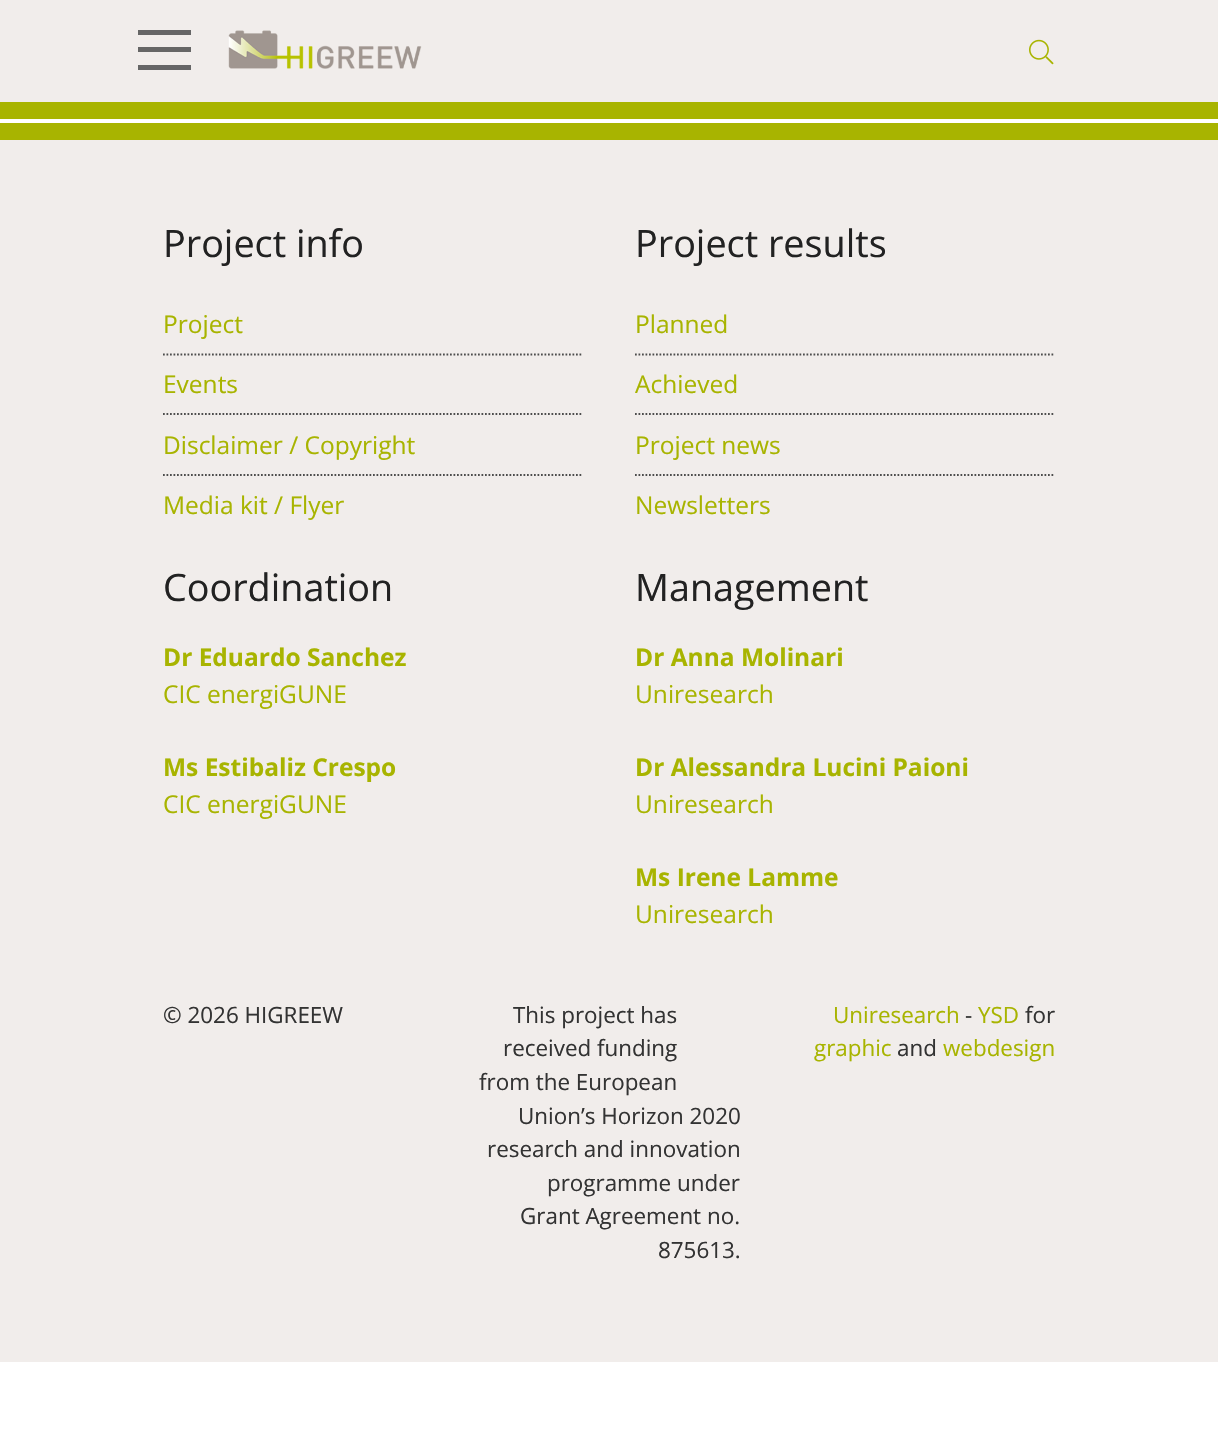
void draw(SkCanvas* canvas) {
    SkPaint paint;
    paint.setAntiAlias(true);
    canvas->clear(0xFFFFFFFF);
    paint.setColor(0xFFF1EDEB);
    canvas->drawRect(SkRect::MakeXYWH(0, 0, 1218, 102), paint);
    paint.setColor(0xFFA8B400);
    canvas->drawRect(SkRect::MakeXYWH(0, 102, 1218, 17), paint);
    paint.setColor(0xFF666666);
    canvas->drawRect(SkRect::MakeXYWH(138, 30, 53, 5), paint);
    canvas->drawRect(SkRect::MakeXYWH(138, 47, 53, 5), paint);
    canvas->drawRect(SkRect::MakeXYWH(138, 65, 53, 5), paint);
    canvas->drawImageRect(SkImages::DeferredFromEncodedData(SkData::MakeFromFileName("img1.png")), SkRect::MakeXYWH(228, 30, 194, 39), SkSamplingOptions());
    canvas->drawImageRect(SkImages::DeferredFromEncodedData(SkData::MakeFromFileName("img2.png")), SkRect::MakeXYWH(1029, 39, 25, 26), SkSamplingOptions());
    paint.setColor(0xFFF1EDEB);
    canvas->drawRect(SkRect::MakeXYWH(0, 140, 1218, 1222), paint);
    paint.setColor(0xFFA8B400);
    canvas->drawRect(SkRect::MakeXYWH(0, 123, 1218, 17), paint);
    SkFont font1(fontMgr->matchFamilyStyle("Open Sans", SkFontStyle::Normal()), 37.75f);
    font1.setSubpixel(true);
    paint.setColor(0xFF222222);
    canvas->drawString("Project info", 163, 257, font1, paint);
    paint.setStyle(SkPaint::kStroke_Style);
    paint.setStrokeWidth(1.8f);
    paint.setColor(0xFF4D4D4D);
    paint.setPathEffect(SkDashPathEffect::Make({{1.75f, 1.75f}}, 0));
    canvas->drawPath(SkPathBuilder().moveTo(163, 354.5f).lineTo(583, 354.5f).detach(), paint);
    paint.setPathEffect(nullptr);
    SkFont font2(fontMgr->matchFamilyStyle("Open Sans", SkFontStyle::Normal()), 24.5f);
    font2.setSubpixel(true);
    paint.setStyle(SkPaint::kFill_Style);
    paint.setColor(0xFFA8B400);
    canvas->drawString("Project", 163, 333, font2, paint);
    paint.setStyle(SkPaint::kStroke_Style);
    paint.setColor(0xFF4D4D4D);
    paint.setPathEffect(SkDashPathEffect::Make({{1.75f, 1.75f}}, 0));
    canvas->drawPath(SkPathBuilder().moveTo(163, 414).lineTo(583, 414).detach(), paint);
    paint.setPathEffect(nullptr);
    paint.setStyle(SkPaint::kFill_Style);
    paint.setColor(0xFFA8B400);
    canvas->drawString("Events", 163, 393, font2, paint);
    paint.setStyle(SkPaint::kStroke_Style);
    paint.setColor(0xFF4D4D4D);
    paint.setPathEffect(SkDashPathEffect::Make({{1.75f, 1.75f}}, 0));
    canvas->drawPath(SkPathBuilder().moveTo(163, 475).lineTo(583, 475).detach(), paint);
    paint.setPathEffect(nullptr);
    paint.setStyle(SkPaint::kFill_Style);
    paint.setColor(0xFFA8B400);
    canvas->drawString("Disclaimer / Copyright", 163, 454, font2, paint);
    canvas->drawString("Media kit / Flyer", 163, 514, font2, paint);
    paint.setColor(0xFF222222);
    canvas->drawString("Project results", 635, 257, font1, paint);
    paint.setStyle(SkPaint::kStroke_Style);
    paint.setColor(0xFF4D4D4D);
    paint.setPathEffect(SkDashPathEffect::Make({{1.75f, 1.75f}}, 0));
    canvas->drawPath(SkPathBuilder().moveTo(635, 354.5f).lineTo(1055, 354.5f).detach(), paint);
    paint.setPathEffect(nullptr);
    paint.setStyle(SkPaint::kFill_Style);
    paint.setColor(0xFFA8B400);
    canvas->drawString("Planned", 635, 333, font2, paint);
    paint.setStyle(SkPaint::kStroke_Style);
    paint.setColor(0xFF4D4D4D);
    paint.setPathEffect(SkDashPathEffect::Make({{1.75f, 1.75f}}, 0));
    canvas->drawPath(SkPathBuilder().moveTo(635, 414).lineTo(1055, 414).detach(), paint);
    paint.setPathEffect(nullptr);
    paint.setStyle(SkPaint::kFill_Style);
    paint.setColor(0xFFA8B400);
    canvas->drawString("Achieved", 635, 393, font2, paint);
    paint.setStyle(SkPaint::kStroke_Style);
    paint.setColor(0xFF4D4D4D);
    paint.setPathEffect(SkDashPathEffect::Make({{1.75f, 1.75f}}, 0));
    canvas->drawPath(SkPathBuilder().moveTo(635, 475).lineTo(1055, 475).detach(), paint);
    paint.setPathEffect(nullptr);
    paint.setStyle(SkPaint::kFill_Style);
    paint.setColor(0xFFA8B400);
    canvas->drawString("Project news", 635, 454, font2, paint);
    canvas->drawString("Newsletters", 635, 514, font2, paint);
    paint.setColor(0xFF222222);
    canvas->drawString("Coordination", 163, 601, font1, paint);
    SkFont font3(fontMgr->matchFamilyStyle("Open Sans", SkFontStyle::Bold()), 24.5f);
    font3.setSubpixel(true);
    paint.setColor(0xFFA8B400);
    canvas->drawString("Dr Eduardo Sanchez", 163, 666, font3, paint);
    canvas->drawString("CIC energiGUNE", 163, 703, font2, paint);
    canvas->drawString("Ms Estibaliz Crespo", 163, 776, font3, paint);
    canvas->drawString("CIC energiGUNE", 163, 813, font2, paint);
    paint.setColor(0xFF222222);
    canvas->drawString("Management", 635, 601, font1, paint);
    paint.setColor(0xFFA8B400);
    canvas->drawString("Dr Anna Molinari", 635, 666, font3, paint);
    canvas->drawString("Uniresearch", 635, 703, font2, paint);
    canvas->drawString("Dr Alessandra Lucini Paioni", 635, 776, font3, paint);
    canvas->drawString("Uniresearch", 635, 813, font2, paint);
    canvas->drawString("Ms Irene Lamme", 635, 886, font3, paint);
    canvas->drawString("Uniresearch", 635, 923, font2, paint);
    SkFont font4(fontMgr->matchFamilyStyle("Open Sans", SkFontStyle::Normal()), 22.4f);
    font4.setSubpixel(true);
    paint.setColor(0xFF333333);
    canvas->drawString("© 2026 HIGREEW", 163, 1023, font4, paint);
    canvas->drawString("This project has", 513, 1023, font4, paint);
    canvas->drawString("received funding", 503, 1056, font4, paint);
    canvas->drawString("from the European", 479, 1090, font4, paint);
    canvas->drawString("Union’s Horizon 2020", 518, 1124, font4, paint);
    canvas->drawString("research and innovation", 487, 1157, font4, paint);
    canvas->drawString("programme under", 547, 1191, font4, paint);
    canvas->drawString("Grant Agreement no.", 520, 1224, font4, paint);
    canvas->drawString("875613.", 658, 1258, font4, paint);
    paint.setColor(0xFFA8B400);
    canvas->drawString("Uniresearch", 833, 1023, font4, paint);
    paint.setColor(0xFF333333);
    canvas->drawString("-", 965, 1023, font4, paint);
    paint.setColor(0xFFA8B400);
    canvas->drawString("YSD", 978, 1023, font4, paint);
    paint.setColor(0xFF333333);
    canvas->drawString("for", 1025, 1023, font4, paint);
    paint.setColor(0xFFA8B400);
    canvas->drawString("graphic", 814, 1056, font4, paint);
    paint.setColor(0xFF333333);
    canvas->drawString("and", 897, 1056, font4, paint);
    paint.setColor(0xFFA8B400);
    canvas->drawString("webdesign", 943, 1056, font4, paint);
}
